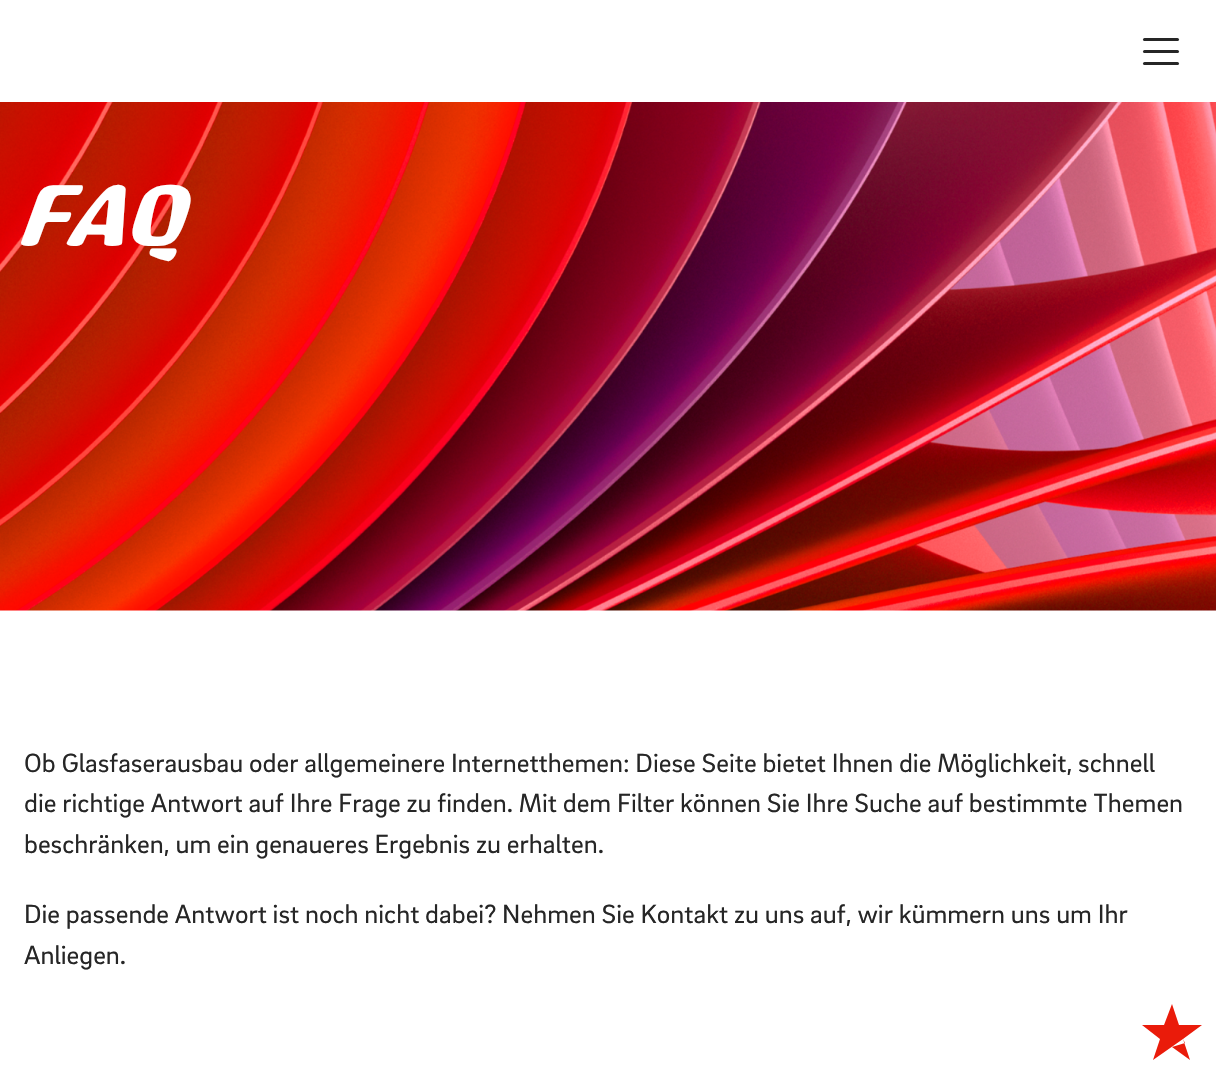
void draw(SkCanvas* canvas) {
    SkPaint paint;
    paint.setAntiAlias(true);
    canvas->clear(0xFFFFFFFF);
    paint.setColor(0xFF262626);
    canvas->drawRoundRect(SkRect::MakeXYWH(1143, 38, 36, 3), 1.5f, 1.5f, paint);
    canvas->drawRoundRect(SkRect::MakeXYWH(1143, 50, 36, 3), 1.5f, 1.5f, paint);
    canvas->drawRoundRect(SkRect::MakeXYWH(1143, 62, 36, 3), 1.5f, 1.5f, paint);
    canvas->drawImageRect(SkImages::DeferredFromEncodedData(SkData::MakeFromFileName("img1.png")), SkRect::MakeXYWH(0, 102, 1216, 509), SkSamplingOptions());
    SkFont font1(fontMgr->matchFamilyStyle("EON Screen", SkFontStyle::Normal()), 97);
    font1.setSubpixel(true);
    paint.setColor(0xFFFFFFFF);
    canvas->drawString("FAQ", 24, 245, font1, paint);
    SkFont font2(fontMgr->matchFamilyStyle("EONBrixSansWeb", SkFontStyle::Normal()), 27);
    font2.setSubpixel(true);
    paint.setColor(0xFF262626);
    canvas->drawString("Ob Glasfaserausbau oder allgemeinere Internetthemen: Diese Seite bietet Ihnen die Möglichkeit, schnell", 24, 772, font2, paint);
    canvas->drawString("die richtige Antwort auf Ihre Frage zu finden. Mit dem Filter können Sie Ihre Suche auf bestimmte Themen", 24, 812, font2, paint);
    canvas->drawString("beschränken, um ein genaueres Ergebnis zu erhalten.", 24, 853, font2, paint);
    canvas->drawString("Die passende Antwort ist noch nicht dabei? Nehmen Sie Kontakt zu uns auf, wir kümmern uns um Ihr", 24, 923, font2, paint);
    canvas->drawString("Anliegen.", 24, 964, font2, paint);
    paint.setColor(0xFFEA1B0A);
    canvas->drawPath(SkPathBuilder(SkPathFillType::kEvenOdd).moveTo(1179, 1025).lineTo(1202, 1025).lineTo(1183, 1039).lineTo(1190, 1060).lineTo(1172, 1047).lineTo(1185, 1043).lineTo(1183, 1039).lineTo(1153, 1060).lineTo(1160, 1039).lineTo(1142, 1025).lineTo(1164, 1025).lineTo(1172, 1004).close().detach(), paint);
}
